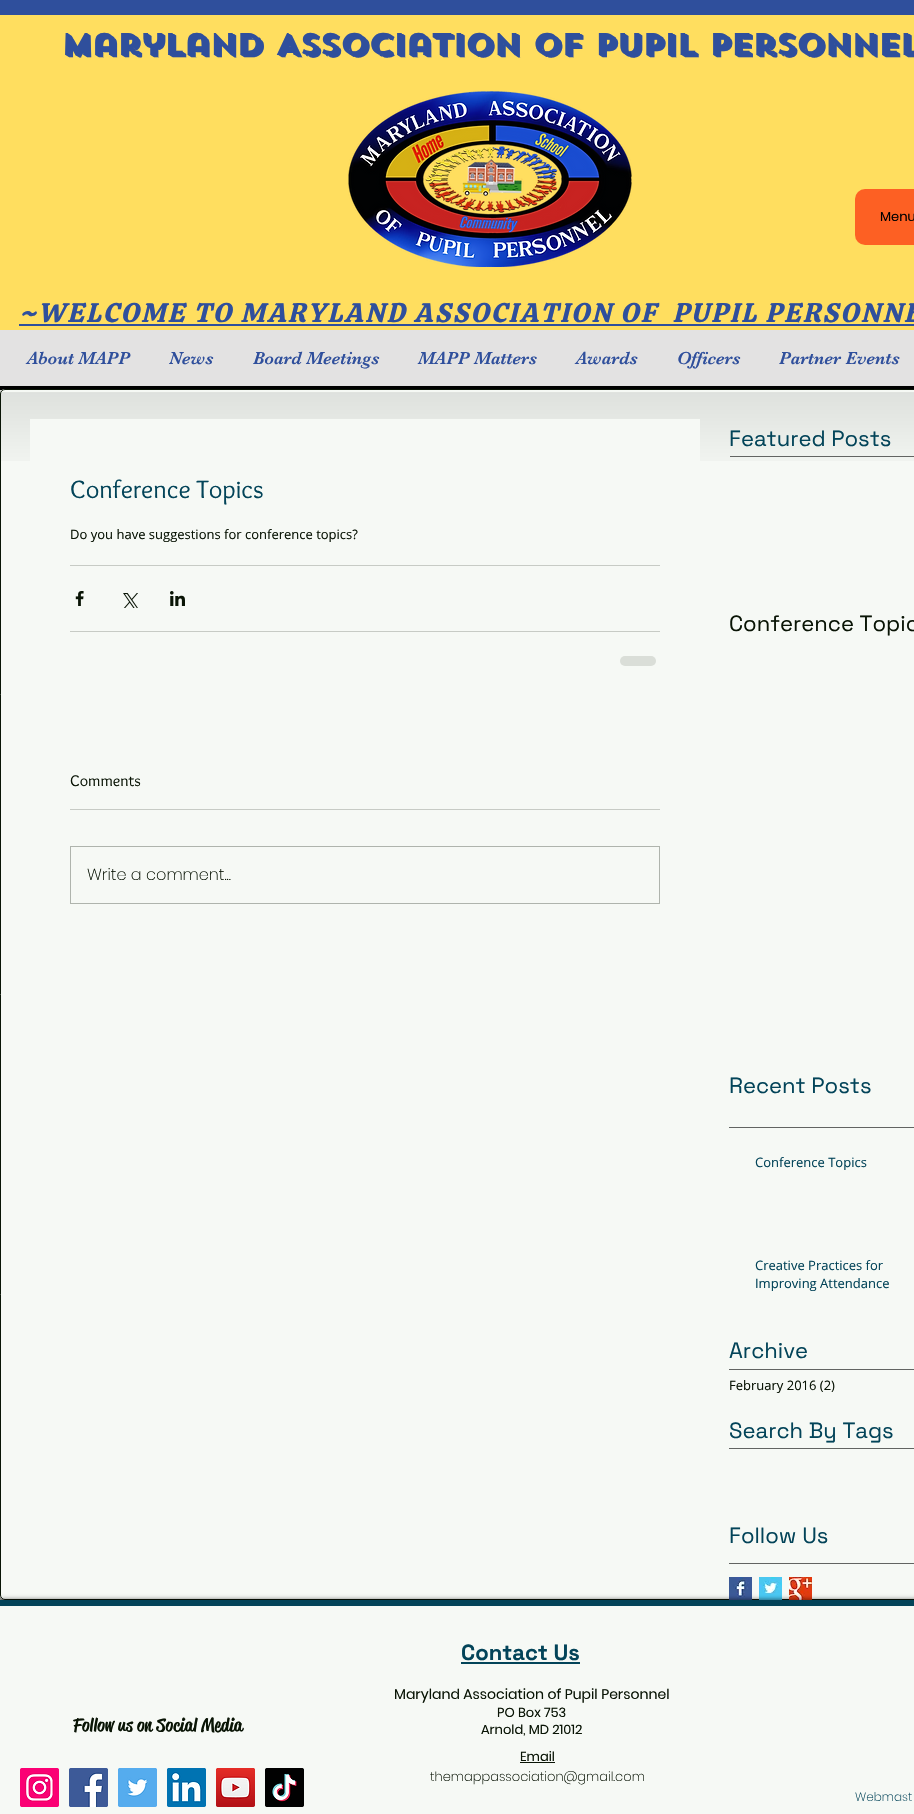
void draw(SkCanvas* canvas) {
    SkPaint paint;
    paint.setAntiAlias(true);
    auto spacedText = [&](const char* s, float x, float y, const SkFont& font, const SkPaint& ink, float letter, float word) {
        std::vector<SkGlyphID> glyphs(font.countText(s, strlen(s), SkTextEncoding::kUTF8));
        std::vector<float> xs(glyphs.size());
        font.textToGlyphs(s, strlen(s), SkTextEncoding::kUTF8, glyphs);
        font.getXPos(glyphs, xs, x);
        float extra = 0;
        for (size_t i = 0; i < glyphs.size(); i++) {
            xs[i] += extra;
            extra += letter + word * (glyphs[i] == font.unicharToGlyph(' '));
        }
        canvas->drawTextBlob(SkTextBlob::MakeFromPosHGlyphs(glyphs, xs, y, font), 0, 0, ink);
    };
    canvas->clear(0xFFC5C7C4);
    paint.setColor(0xFF2F4F9C);
    canvas->drawRect(SkRect::MakeXYWH(0, 0, 914, 15), paint);
    paint.setColor(0xFFFFDE5F);
    canvas->drawRect(SkRect::MakeXYWH(0, 15, 914, 315), paint);
    SkFont font1(fontMgr->matchFamilyStyle("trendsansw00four", SkFontStyle::Bold()), 30);
    font1.setSubpixel(true);
    paint.setColor(0xFF2F4F9C);
    canvas->drawString("Maryland Association of Pupil Personnel", 61, 55, font1, paint);
    canvas->drawImageRect(SkImages::DeferredFromEncodedData(SkData::MakeFromFileName("img1.png")), SkRect::MakeXYWH(348, 91, 284, 176), SkSamplingOptions());
    paint.setColor(0xFFFD6023);
    canvas->drawRoundRect(SkRect::MakeXYWH(855, 189, 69, 56), 10, 10, paint);
    SkFont font2(fontMgr->matchFamilyStyle("Poppins", SkFontStyle::Normal()), 13);
    font2.setSubpixel(true);
    paint.setColor(0xFF000000);
    canvas->drawString("Menu", 880, 221, font2, paint);
    SkFont font3(fontMgr->matchFamilyStyle("Calistoga", SkFontStyle::Italic()), 27);
    font3.setSubpixel(true);
    paint.setColor(0xFF2F4F9C);
    spacedText("~WELCOME TO MARYLAND ASSOCIATION OF  PUPIL PERSONNE", 19, 322, font3, paint, 2.15f, 0);
    canvas->drawRect(SkRect::MakeXYWH(19, 324, 895, 2), paint);
    paint.setColor(0xFF000000);
    canvas->drawRect(SkRect::MakeXYWH(0, 386, 914, 4), paint);
    paint.setColor(0xFFE3E2E2);
    canvas->drawRect(SkRect::MakeXYWH(0, 330, 914, 56), paint);
    SkFont font4(fontMgr->matchFamilyStyle("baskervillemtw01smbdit", SkFontStyle::Normal()), 18);
    font4.setSubpixel(true);
    paint.setColor(0xFF2F4F9C);
    canvas->drawString("About MAPP", 27, 364, font4, paint);
    canvas->drawString("News", 169, 364, font4, paint);
    canvas->drawString("Board Meetings", 253, 364, font4, paint);
    canvas->drawString("MAPP Matters", 418, 364, font4, paint);
    canvas->drawString("Awards", 576, 364, font4, paint);
    canvas->drawString("Officers", 677, 364, font4, paint);
    canvas->drawString("Partner Events", 779, 364, font4, paint);
    paint.setColor(0xFFF6F9F5);
    canvas->drawRect(SkRect::MakeXYWH(0, 390, 2, 4), paint);
    paint.setColor(0x99000000);
    paint.setMaskFilter(SkMaskFilter::MakeBlur(kNormal_SkBlurStyle, 2));
    canvas->drawRoundRect(SkRect::MakeXYWH(0, 390, 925, 1211), 5, 5, paint);
    paint.setMaskFilter(nullptr);
    paint.setColor(0xFFF6F9F5);
    canvas->drawRoundRect(SkRect::MakeXYWH(0, 389, 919, 1211), 5, 5, paint);
    canvas->drawImageRect(SkImages::DeferredFromEncodedData(SkData::MakeFromFileName("img2.png")), SkRect::MakeXYWH(0, 392, 914, 69), SkSamplingOptions());
    paint.setStyle(SkPaint::kStroke_Style);
    paint.setStrokeWidth(1);
    paint.setColor(0xFF091405);
    canvas->drawRoundRect(SkRect::MakeXYWH(0.5f, 389.5f, 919, 1210), 4.5f, 4.5f, paint);
    SkFont font5(fontMgr->matchFamilyStyle("Space Grotesk", SkFontStyle::Normal()), 22);
    font5.setSubpixel(true);
    paint.setStyle(SkPaint::kFill_Style);
    paint.setColor(0xFF034459);
    canvas->drawString("Featured Posts", 729, 446, font5, paint);
    paint.setColor(0xFF626462);
    canvas->drawRect(SkRect::MakeXYWH(730, 456, 184, 1), paint);
    paint.setColor(0xFFF6F9F5);
    canvas->drawRect(SkRect::MakeXYWH(30, 419, 670, 42), paint);
    SkFont font6(fontMgr->matchFamilyStyle("Overlock", SkFontStyle::Normal()), 26);
    font6.setSubpixel(true);
    paint.setColor(0xFF034459);
    canvas->drawString("Conference Topics", 70, 498, font6, paint);
    SkFont font7(fontMgr->matchFamilyStyle("Open Sans", SkFontStyle::Normal()), 13);
    font7.setSubpixel(true);
    paint.setColor(0xFF091405);
    canvas->drawString("Do you have suggestions for conference topics?", 70, 539, font7, paint);
    paint.setColor(0xFFC7CBC5);
    canvas->drawRect(SkRect::MakeXYWH(70, 565, 590, 1), paint);
    canvas->drawImageRect(SkImages::DeferredFromEncodedData(SkData::MakeFromFileName("img3.png")), SkRect::MakeXYWH(75, 591, 9, 15), SkSamplingOptions());
    canvas->drawImageRect(SkImages::DeferredFromEncodedData(SkData::MakeFromFileName("img4.png")), SkRect::MakeXYWH(123, 593, 15, 15), SkSamplingOptions());
    canvas->drawImageRect(SkImages::DeferredFromEncodedData(SkData::MakeFromFileName("img5.png")), SkRect::MakeXYWH(170, 591, 15, 15), SkSamplingOptions());
    canvas->drawRect(SkRect::MakeXYWH(70, 631, 590, 1), paint);
    paint.setColor(0xFFDADED8);
    canvas->drawRoundRect(SkRect::MakeXYWH(620, 656, 36, 10), 5, 5, paint);
    SkFont font8(fontMgr->matchFamilyStyle("Overlock", SkFontStyle::Normal()), 16);
    font8.setSubpixel(true);
    paint.setColor(0xFF091405);
    canvas->drawString("Comments", 70, 786, font8, paint);
    paint.setColor(0xFFC7CBC5);
    canvas->drawRect(SkRect::MakeXYWH(70, 809, 590, 1), paint);
    paint.setStyle(SkPaint::kStroke_Style);
    paint.setColor(0xFFAFB4AD);
    canvas->drawRect(SkRect::MakeXYWH(70.5f, 846.5f, 589, 57), paint);
    SkFont font9(fontMgr->matchFamilyStyle("Poppins", SkFontStyle(200, SkFontStyle::kNormal_Width, SkFontStyle::kUpright_Slant)), 16);
    font9.setSubpixel(true);
    paint.setStyle(SkPaint::kFill_Style);
    paint.setColor(0xFF091405);
    canvas->drawString("Write a comment...", 87, 880, font9, paint);
    canvas->drawString("Conference Topic", 729, 631, font5, paint);
    paint.setColor(0xFF034459);
    canvas->drawString("Recent Posts", 729, 1093, font5, paint);
    paint.setColor(0xFF626462);
    canvas->drawRect(SkRect::MakeXYWH(729, 1127, 185, 1), paint);
    paint.setColor(0xFF034459);
    canvas->drawString("Conference Topics", 755, 1167, font7, paint);
    canvas->drawString("Creative Practices for", 755, 1270, font7, paint);
    canvas->drawString("Improving Attendance", 755, 1288, font7, paint);
    canvas->drawString("Archive", 729, 1358, font5, paint);
    paint.setColor(0xFF626462);
    canvas->drawRect(SkRect::MakeXYWH(729, 1369, 185, 1), paint);
    paint.setColor(0xFF091405);
    canvas->drawString("February 2016 (2)", 729, 1390, font7, paint);
    paint.setColor(0xFF034459);
    canvas->drawString("Search By Tags", 729, 1438, font5, paint);
    paint.setColor(0xFF626462);
    canvas->drawRect(SkRect::MakeXYWH(729, 1448, 185, 1), paint);
    paint.setColor(0xFF034459);
    canvas->drawString("Follow Us", 729, 1543, font5, paint);
    paint.setColor(0xFF626462);
    canvas->drawRect(SkRect::MakeXYWH(729, 1563, 185, 1), paint);
    canvas->drawImageRect(SkImages::DeferredFromEncodedData(SkData::MakeFromFileName("img6.png")), SkRect::MakeXYWH(729, 1577, 23, 23), SkSamplingOptions());
    canvas->drawImageRect(SkImages::DeferredFromEncodedData(SkData::MakeFromFileName("img7.png")), SkRect::MakeXYWH(759, 1577, 23, 23), SkSamplingOptions());
    canvas->drawImageRect(SkImages::DeferredFromEncodedData(SkData::MakeFromFileName("img8.png")), SkRect::MakeXYWH(789, 1577, 23, 23), SkSamplingOptions());
    paint.setColor(0xB3000000);
    paint.setMaskFilter(SkMaskFilter::MakeBlur(kNormal_SkBlurStyle, 2.5f));
    canvas->drawRect(SkRect::MakeXYWH(0, 1600, 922, 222), paint);
    paint.setMaskFilter(nullptr);
    paint.setColor(0xFFF6F9F5);
    canvas->drawRect(SkRect::MakeXYWH(0, 1606, 914, 208), paint);
    paint.setColor(0xFF034459);
    canvas->drawRect(SkRect::MakeXYWH(0, 1600, 914, 6), paint);
    SkFont font10(fontMgr->matchFamilyStyle("Space Grotesk", SkFontStyle::Bold()), 22);
    font10.setSubpixel(true);
    canvas->drawString("Contact Us", 461, 1660, font10, paint);
    canvas->drawRect(SkRect::MakeXYWH(461, 1662, 119, 2), paint);
    SkFont font11(fontMgr->matchFamilyStyle("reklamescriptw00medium", SkFontStyle(500, SkFontStyle::kNormal_Width, SkFontStyle::kUpright_Slant)), 18);
    font11.setSubpixel(true);
    paint.setColor(0xFF091405);
    spacedText("Follow us on Social Media", 73, 1731, font11, paint, 0.2f, 0);
    SkFont font12(fontMgr->matchFamilyStyle("Poppins", SkFontStyle::Normal()), 14);
    font12.setSubpixel(true);
    canvas->drawString("Maryland Association of Pupil Personnel", 394, 1699, font12, paint);
    canvas->drawString("PO Box 753", 497, 1717, font2, paint);
    canvas->drawString("Arnold, MD 21012", 481, 1734, font2, paint);
    canvas->drawImageRect(SkImages::DeferredFromEncodedData(SkData::MakeFromFileName("img9.png")), SkRect::MakeXYWH(20, 1768, 39, 39), SkSamplingOptions());
    canvas->drawImageRect(SkImages::DeferredFromEncodedData(SkData::MakeFromFileName("img10.png")), SkRect::MakeXYWH(69, 1768, 39, 39), SkSamplingOptions());
    canvas->drawImageRect(SkImages::DeferredFromEncodedData(SkData::MakeFromFileName("img11.png")), SkRect::MakeXYWH(118, 1768, 39, 39), SkSamplingOptions());
    canvas->drawImageRect(SkImages::DeferredFromEncodedData(SkData::MakeFromFileName("img12.png")), SkRect::MakeXYWH(167, 1768, 39, 39), SkSamplingOptions());
    canvas->drawImageRect(SkImages::DeferredFromEncodedData(SkData::MakeFromFileName("img13.png")), SkRect::MakeXYWH(216, 1768, 39, 39), SkSamplingOptions());
    canvas->drawImageRect(SkImages::DeferredFromEncodedData(SkData::MakeFromFileName("img14.png")), SkRect::MakeXYWH(265, 1768, 39, 39), SkSamplingOptions());
    canvas->drawString("Email", 520, 1761, font2, paint);
    canvas->drawRect(SkRect::MakeXYWH(520, 1762, 35, 1), paint);
    SkFont font13(fontMgr->matchFamilyStyle("Poppins", SkFontStyle(200, SkFontStyle::kNormal_Width, SkFontStyle::kUpright_Slant)), 13);
    font13.setSubpixel(true);
    canvas->drawString("themappassociation@gmail.com", 430, 1781, font13, paint);
    SkFont font14(fontMgr->matchFamilyStyle("Poppins", SkFontStyle(200, SkFontStyle::kNormal_Width, SkFontStyle::kUpright_Slant)), 12);
    font14.setSubpixel(true);
    paint.setColor(0xFF034459);
    canvas->drawString("Webmast", 855, 1801, font14, paint);
}
